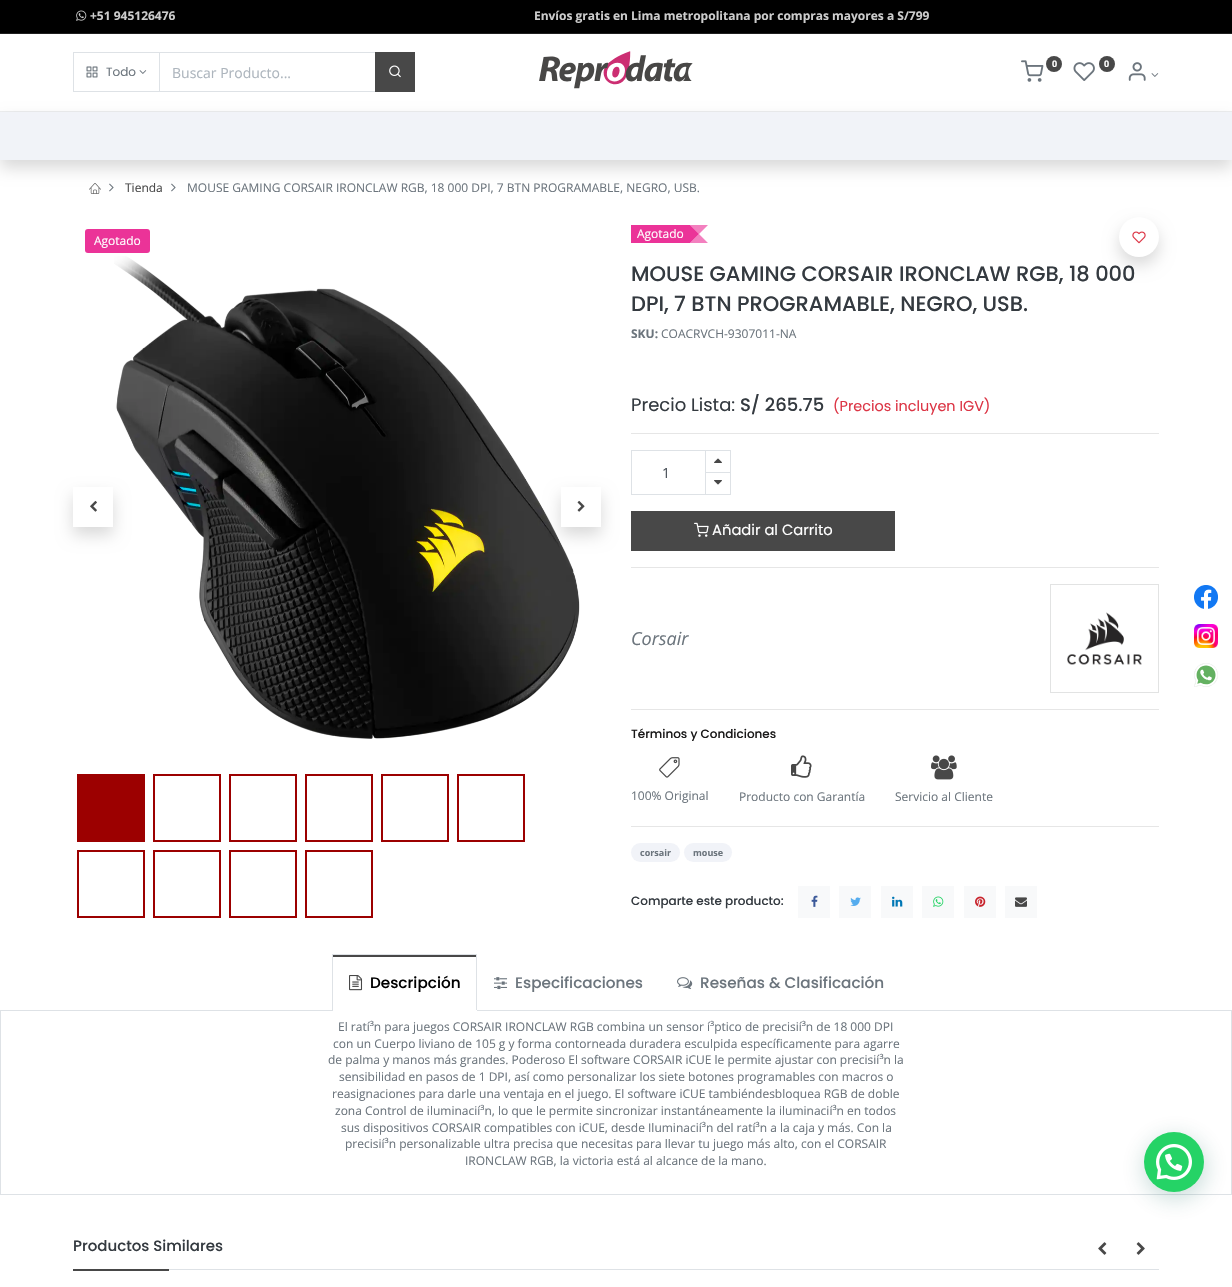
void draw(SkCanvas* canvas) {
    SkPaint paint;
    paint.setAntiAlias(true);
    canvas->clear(0xFFFFFFFF);
    paint.setColor(0xFF000000);
    canvas->drawRect(SkRect::MakeXYWH(0, 0, 1232, 33), paint);
    paint.setColor(0xFF1F1F1F);
    canvas->drawRect(SkRect::MakeXYWH(0, 33, 1232, 1), paint);
    canvas->drawImageRect(SkImages::DeferredFromEncodedData(SkData::MakeFromFileName("img1.png")), SkRect::MakeXYWH(76, 10, 11, 11), SkSamplingOptions());
    SkFont font1(fontMgr->matchFamilyStyle("Open Sans", SkFontStyle::Bold()), 12);
    font1.setSubpixel(true);
    paint.setColor(0xFFCCCCCC);
    canvas->drawString("+51 945126476                                                                                                                   Envíos gratis en Lima metropolitana por compras mayores a S/799", 90, 20, font1, paint);
    paint.setColor(0xFFEDEEEF);
    canvas->drawRect(SkRect::MakeXYWH(0, 111, 1232, 1), paint);
    canvas->drawImageRect(SkImages::DeferredFromEncodedData(SkData::MakeFromFileName("img2.png")), SkRect::MakeXYWH(539, 51, 154, 38), SkSamplingOptions());
    canvas->drawImageRect(SkImages::DeferredFromEncodedData(SkData::MakeFromFileName("img3.png")), SkRect::MakeXYWH(1021, 60, 23, 22), SkSamplingOptions());
    paint.setColor(0xFF484848);
    canvas->drawCircle(1054, 64, 8, paint);
    SkFont font2(fontMgr->matchFamilyStyle("Open Sans", SkFontStyle::Bold()), 9);
    font2.setSubpixel(true);
    paint.setColor(0xFFFFFFFF);
    canvas->drawString("0", 1052, 67, font2, paint);
    canvas->drawImageRect(SkImages::DeferredFromEncodedData(SkData::MakeFromFileName("img4.png")), SkRect::MakeXYWH(1073, 62, 22, 19), SkSamplingOptions());
    paint.setColor(0xFF484848);
    canvas->drawCircle(1107, 64, 8, paint);
    paint.setColor(0xFFFFFFFF);
    canvas->drawString("0", 1104, 67, font2, paint);
    canvas->drawImageRect(SkImages::DeferredFromEncodedData(SkData::MakeFromFileName("img5.png")), SkRect::MakeXYWH(1128, 62, 18, 19), SkSamplingOptions());
    canvas->drawImageRect(SkImages::DeferredFromEncodedData(SkData::MakeFromFileName("img6.png")), SkRect::MakeXYWH(1151, 73, 8, 4), SkSamplingOptions());
    paint.setStyle(SkPaint::kStroke_Style);
    paint.setStrokeWidth(1);
    paint.setColor(0xFFDEE2E6);
    canvas->drawRect(SkRect::MakeXYWH(159.5f, 52.5f, 216, 39), paint);
    canvas->drawRect(SkRect::MakeXYWH(73.5f, 52.5f, 86, 39), paint);
    canvas->drawImageRect(SkImages::DeferredFromEncodedData(SkData::MakeFromFileName("img7.png")), SkRect::MakeXYWH(86, 66, 12, 12), SkSamplingOptions());
    SkFont font3(fontMgr->matchFamilyStyle("Poppins", SkFontStyle::Normal()), 12);
    font3.setSubpixel(true);
    paint.setStyle(SkPaint::kFill_Style);
    paint.setColor(0xFF6C757D);
    canvas->drawString("Todo", 106, 76, font3, paint);
    canvas->drawImageRect(SkImages::DeferredFromEncodedData(SkData::MakeFromFileName("img6.png")), SkRect::MakeXYWH(139, 70, 8, 4), SkSamplingOptions());
    SkFont font4(fontMgr->matchFamilyStyle("Open Sans", SkFontStyle::Normal()), 14);
    font4.setSubpixel(true);
    paint.setColor(0xFFADB5BD);
    canvas->drawString("Buscar Producto...", 172, 78, font4, paint);
    paint.setColor(0xFF484848);
    canvas->drawRect(SkRect::MakeXYWH(375, 52, 40, 40), paint);
    canvas->drawImageRect(SkImages::DeferredFromEncodedData(SkData::MakeFromFileName("img8.png")), SkRect::MakeXYWH(389, 65, 12, 13), SkSamplingOptions());
    canvas->drawImageRect(SkImages::DeferredFromEncodedData(SkData::MakeFromFileName("img9.png")), SkRect::MakeXYWH(89, 183, 12, 11), SkSamplingOptions());
    canvas->drawImageRect(SkImages::DeferredFromEncodedData(SkData::MakeFromFileName("img10.png")), SkRect::MakeXYWH(109, 183, 5, 9), SkSamplingOptions());
    canvas->drawImageRect(SkImages::DeferredFromEncodedData(SkData::MakeFromFileName("img10.png")), SkRect::MakeXYWH(171, 183, 5, 9), SkSamplingOptions());
    paint.setColor(0x26000000);
    paint.setMaskFilter(SkMaskFilter::MakeBlur(kNormal_SkBlurStyle, 8));
    canvas->drawRect(SkRect::MakeXYWH(0, 120, 1232, 48), paint);
    paint.setMaskFilter(nullptr);
    paint.setColor(0xFFF1F3F8);
    canvas->drawRect(SkRect::MakeXYWH(0, 112, 1232, 48), paint);
    SkFont font5(fontMgr->matchFamilyStyle("Open Sans", SkFontStyle::Normal()), 12);
    font5.setSubpixel(true);
    paint.setColor(0xFF484848);
    canvas->drawString("Tienda", 125, 192, font5, paint);
    paint.setColor(0xFF6C757D);
    canvas->drawString("MOUSE GAMING CORSAIR IRONCLAW RGB, 18 000 DPI, 7 BTN PROGRAMABLE, NEGRO, USB.", 187, 192, font5, paint);
    paint.setColor(0xFFEB3398);
    canvas->drawRoundRect(SkRect::MakeXYWH(85, 229, 65, 24), 3, 3, paint);
    paint.setColor(0xFFFFFFFF);
    canvas->drawString("Agotado", 94, 245, font5, paint);
    canvas->drawImageRect(SkImages::DeferredFromEncodedData(SkData::MakeFromFileName("img12.png")), SkRect::MakeXYWH(114, 256, 466, 483), SkSamplingOptions());
    canvas->save();
    canvas->clipPath(SkPathBuilder(SkPathFillType::kEvenOdd).moveTo(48, 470).lineTo(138, 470).lineTo(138, 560).lineTo(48, 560).close().moveTo(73, 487).lineTo(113, 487).lineTo(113, 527).lineTo(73, 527).close().detach(), true);
    paint.setColor(0x26000000);
    paint.setMaskFilter(SkMaskFilter::MakeBlur(kNormal_SkBlurStyle, 8));
    canvas->drawRect(SkRect::MakeXYWH(73, 495, 40, 40), paint);
    paint.setMaskFilter(nullptr);
    canvas->restore();
    canvas->drawImageRect(SkImages::DeferredFromEncodedData(SkData::MakeFromFileName("img11.png")), SkRect::MakeXYWH(90, 500, 7, 12), SkSamplingOptions());
    canvas->save();
    canvas->clipPath(SkPathBuilder(SkPathFillType::kEvenOdd).moveTo(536, 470).lineTo(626, 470).lineTo(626, 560).lineTo(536, 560).close().moveTo(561, 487).lineTo(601, 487).lineTo(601, 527).lineTo(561, 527).close().detach(), true);
    paint.setMaskFilter(SkMaskFilter::MakeBlur(kNormal_SkBlurStyle, 8));
    canvas->drawRect(SkRect::MakeXYWH(561, 495, 40, 40), paint);
    paint.setMaskFilter(nullptr);
    canvas->restore();
    canvas->drawImageRect(SkImages::DeferredFromEncodedData(SkData::MakeFromFileName("img13.png")), SkRect::MakeXYWH(577, 500, 8, 12), SkSamplingOptions());
    paint.setColor(0xFF9C0000);
    canvas->drawRect(SkRect::MakeXYWH(78, 775, 66, 66), paint);
    paint.setStyle(SkPaint::kStroke_Style);
    paint.setStrokeWidth(2);
    canvas->drawRect(SkRect::MakeXYWH(78, 775, 66, 66), paint);
    canvas->drawRect(SkRect::MakeXYWH(154, 775, 66, 66), paint);
    canvas->drawRect(SkRect::MakeXYWH(230, 775, 66, 66), paint);
    canvas->drawRect(SkRect::MakeXYWH(306, 775, 66, 66), paint);
    canvas->drawRect(SkRect::MakeXYWH(382, 775, 66, 66), paint);
    canvas->drawRect(SkRect::MakeXYWH(458, 775, 66, 66), paint);
    canvas->drawRect(SkRect::MakeXYWH(78, 851, 66, 66), paint);
    canvas->drawRect(SkRect::MakeXYWH(154, 851, 66, 66), paint);
    canvas->drawRect(SkRect::MakeXYWH(230, 851, 66, 66), paint);
    canvas->drawRect(SkRect::MakeXYWH(306, 851, 66, 66), paint);
    paint.setStyle(SkPaint::kFill_Style);
    paint.setColor(0xFFEB3398);
    canvas->drawRect(SkRect::MakeXYWH(631, 225, 59, 18), paint);
    paint.setColor(0xFFFFFFFF);
    canvas->drawString("Agotado", 637, 238, font5, paint);
    paint.setColor(0xFFF380BF);
    canvas->drawPath(SkPathBuilder().moveTo(690, 225).lineTo(708, 225).lineTo(699, 234).close().moveTo(708, 243).lineTo(690, 243).lineTo(699, 234).close().detach(), paint);
    paint.setColor(0xCCE6007E);
    canvas->drawPath(SkPathBuilder().moveTo(690, 243).lineTo(690, 225).lineTo(699, 234).close().detach(), paint);
    SkFont font6(fontMgr->matchFamilyStyle("Poppins", SkFontStyle(500, SkFontStyle::kNormal_Width, SkFontStyle::kUpright_Slant)), 21);
    font6.setSubpixel(true);
    paint.setColor(0xFF343A40);
    canvas->drawString("MOUSE GAMING CORSAIR IRONCLAW RGB, 18 000", 631, 281, font6, paint);
    canvas->drawString("DPI, 7 BTN PROGRAMABLE, NEGRO, USB.", 631, 311, font6, paint);
    paint.setColor(0xFF6C757D);
    canvas->drawString("SKU:", 631, 338, font1, paint);
    canvas->drawString("COACRVCH-9307011-NA", 661, 338, font5, paint);
    paint.setColor(0x26000000);
    paint.setMaskFilter(SkMaskFilter::MakeBlur(kNormal_SkBlurStyle, 8));
    canvas->drawRoundRect(SkRect::MakeXYWH(1119, 225, 40, 40), 20, 20, paint);
    paint.setMaskFilter(nullptr);
    paint.setColor(0xFFFFFFFF);
    canvas->drawCircle(1139, 237, 20, paint);
    canvas->drawImageRect(SkImages::DeferredFromEncodedData(SkData::MakeFromFileName("img14.png")), SkRect::MakeXYWH(1132, 231, 14, 13), SkSamplingOptions());
    SkFont font7(fontMgr->matchFamilyStyle("Poppins", SkFontStyle::Normal()), 18);
    font7.setSubpixel(true);
    paint.setColor(0xFF343A40);
    canvas->drawString("Precio Lista:", 631, 411, font7, paint);
    SkFont font8(fontMgr->matchFamilyStyle("Poppins", SkFontStyle(500, SkFontStyle::kNormal_Width, SkFontStyle::kUpright_Slant)), 18);
    font8.setSubpixel(true);
    canvas->drawString("S/ 265.75", 740, 411, font8, paint);
    SkFont font9(fontMgr->matchFamilyStyle("Poppins", SkFontStyle::Normal()), 14.4f);
    font9.setSubpixel(true);
    paint.setColor(0xFFDC3545);
    canvas->drawString("(Precios incluyen IGV)", 833, 411, font9, paint);
    paint.setColor(0xFFE6E6E6);
    canvas->drawRect(SkRect::MakeXYWH(631, 433, 528, 1), paint);
    paint.setStyle(SkPaint::kStroke_Style);
    paint.setStrokeWidth(1);
    paint.setColor(0xFFDEE2E6);
    canvas->drawRect(SkRect::MakeXYWH(631.5f, 450.5f, 99, 44), paint);
    paint.setStyle(SkPaint::kFill_Style);
    paint.setColor(0xFF495057);
    canvas->drawString("1", 662, 478, font4, paint);
    paint.setColor(0xFFDEE2E6);
    canvas->drawRect(SkRect::MakeXYWH(705, 472, 1, 22), paint);
    canvas->drawRect(SkRect::MakeXYWH(705, 472, 25, 1), paint);
    canvas->drawRect(SkRect::MakeXYWH(705, 451, 1, 22), paint);
    canvas->drawImageRect(SkImages::DeferredFromEncodedData(SkData::MakeFromFileName("img15.png")), SkRect::MakeXYWH(714, 458, 8, 5), SkSamplingOptions());
    canvas->drawImageRect(SkImages::DeferredFromEncodedData(SkData::MakeFromFileName("img16.png")), SkRect::MakeXYWH(714, 480, 8, 5), SkSamplingOptions());
    paint.setColor(0xFF484848);
    canvas->drawRect(SkRect::MakeXYWH(631, 511, 264, 40), paint);
    canvas->drawImageRect(SkImages::DeferredFromEncodedData(SkData::MakeFromFileName("img17.png")), SkRect::MakeXYWH(694, 522, 15, 15), SkSamplingOptions());
    SkFont font10(fontMgr->matchFamilyStyle("Poppins", SkFontStyle::Normal()), 14.75f);
    font10.setSubpixel(true);
    paint.setColor(0xFFFFFFFF);
    canvas->drawString("Añadir al Carrito", 712, 535, font10, paint);
    paint.setColor(0xFFE6E6E6);
    canvas->drawRect(SkRect::MakeXYWH(631, 567, 528, 1), paint);
    SkFont font11(fontMgr->matchFamilyStyle("Open Sans", SkFontStyle::Italic()), 18);
    font11.setSubpixel(true);
    paint.setColor(0xFF6C757D);
    canvas->drawString("Corsair", 631, 645, font11, paint);
    paint.setStyle(SkPaint::kStroke_Style);
    paint.setColor(0xFFE2E3E3);
    canvas->drawRect(SkRect::MakeXYWH(1050.5f, 584.5f, 108, 108), paint);
    canvas->drawImageRect(SkImages::DeferredFromEncodedData(SkData::MakeFromFileName("img18.png")), SkRect::MakeXYWH(1067, 612, 75, 53), SkSamplingOptions());
    paint.setStyle(SkPaint::kFill_Style);
    paint.setColor(0xFFE6E6E6);
    canvas->drawRect(SkRect::MakeXYWH(631, 709, 528, 1), paint);
    SkFont font12(fontMgr->matchFamilyStyle("Poppins", SkFontStyle(500, SkFontStyle::kNormal_Width, SkFontStyle::kUpright_Slant)), 12);
    font12.setSubpixel(true);
    paint.setColor(0xFF1A1919);
    canvas->drawString("Términos y Condiciones", 631, 738, font12, paint);
    canvas->drawImageRect(SkImages::DeferredFromEncodedData(SkData::MakeFromFileName("img19.png")), SkRect::MakeXYWH(659, 757, 21, 21), SkSamplingOptions());
    paint.setColor(0xFF6C757D);
    canvas->drawString("100% Original", 631, 800, font5, paint);
    canvas->drawImageRect(SkImages::DeferredFromEncodedData(SkData::MakeFromFileName("img20.png")), SkRect::MakeXYWH(791, 755, 21, 23), SkSamplingOptions());
    canvas->drawString("Producto con Garantía", 739, 801, font5, paint);
    canvas->drawImageRect(SkImages::DeferredFromEncodedData(SkData::MakeFromFileName("img21.png")), SkRect::MakeXYWH(931, 755, 26, 25), SkSamplingOptions());
    canvas->drawString("Servicio al Cliente", 895, 801, font5, paint);
    paint.setColor(0xFFE6E6E6);
    canvas->drawRect(SkRect::MakeXYWH(631, 826, 528, 1), paint);
    paint.setColor(0xFFF1F3F8);
    canvas->drawRoundRect(SkRect::MakeXYWH(631, 843, 49, 19), 9.5f, 9.5f, paint);
    paint.setColor(0xFF6C757D);
    canvas->drawString("corsair", 640, 856, font2, paint);
    paint.setColor(0xFFF1F3F8);
    canvas->drawRoundRect(SkRect::MakeXYWH(684, 843, 48, 19), 9.5f, 9.5f, paint);
    paint.setColor(0xFF6C757D);
    canvas->drawString("mouse", 693, 856, font2, paint);
    paint.setColor(0xFF343A40);
    canvas->drawString("Comparte este producto:", 631, 905, font12, paint);
    paint.setColor(0xFFF8F9FA);
    canvas->drawRect(SkRect::MakeXYWH(798, 886, 32, 32), paint);
    canvas->drawImageRect(SkImages::DeferredFromEncodedData(SkData::MakeFromFileName("img22.png")), SkRect::MakeXYWH(811, 895, 7, 12), SkSamplingOptions());
    canvas->drawRect(SkRect::MakeXYWH(839, 886, 32, 32), paint);
    canvas->drawImageRect(SkImages::DeferredFromEncodedData(SkData::MakeFromFileName("img23.png")), SkRect::MakeXYWH(850, 897, 11, 9), SkSamplingOptions());
    canvas->drawRect(SkRect::MakeXYWH(881, 886, 32, 32), paint);
    canvas->drawImageRect(SkImages::DeferredFromEncodedData(SkData::MakeFromFileName("img24.png")), SkRect::MakeXYWH(892, 896, 11, 11), SkSamplingOptions());
    canvas->drawRect(SkRect::MakeXYWH(922, 886, 32, 32), paint);
    canvas->drawImageRect(SkImages::DeferredFromEncodedData(SkData::MakeFromFileName("img25.png")), SkRect::MakeXYWH(933, 896, 11, 11), SkSamplingOptions());
    canvas->drawRect(SkRect::MakeXYWH(964, 886, 32, 32), paint);
    canvas->drawImageRect(SkImages::DeferredFromEncodedData(SkData::MakeFromFileName("img26.png")), SkRect::MakeXYWH(975, 896, 11, 11), SkSamplingOptions());
    canvas->drawRect(SkRect::MakeXYWH(1005, 886, 32, 32), paint);
    canvas->drawImageRect(SkImages::DeferredFromEncodedData(SkData::MakeFromFileName("img27.png")), SkRect::MakeXYWH(1015, 897, 12, 10), SkSamplingOptions());
    paint.setColor(0xFFDEE2E6);
    canvas->drawRect(SkRect::MakeXYWH(0, 1010, 1232, 1), paint);
    paint.setColor(0xFF484848);
    canvas->drawRect(SkRect::MakeXYWH(333, 955, 143, 2), paint);
    paint.setColor(0xFFDEE2E6);
    canvas->drawRect(SkRect::MakeXYWH(332, 954, 145, 1), paint);
    canvas->drawRect(SkRect::MakeXYWH(476, 954, 1, 57), paint);
    paint.setColor(0xFFFFFFFF);
    canvas->drawRect(SkRect::MakeXYWH(332, 1010, 145, 1), paint);
    paint.setColor(0xFFDEE2E6);
    canvas->drawRect(SkRect::MakeXYWH(332, 954, 1, 57), paint);
    canvas->drawImageRect(SkImages::DeferredFromEncodedData(SkData::MakeFromFileName("img28.png")), SkRect::MakeXYWH(349, 975, 14, 16), SkSamplingOptions());
    SkFont font13(fontMgr->matchFamilyStyle("Poppins", SkFontStyle(500, SkFontStyle::kNormal_Width, SkFontStyle::kUpright_Slant)), 15.25f);
    font13.setSubpixel(true);
    paint.setColor(0xFF000000);
    canvas->drawString("Descripción", 370, 988, font13, paint);
    canvas->drawImageRect(SkImages::DeferredFromEncodedData(SkData::MakeFromFileName("img29.png")), SkRect::MakeXYWH(494, 977, 14, 13), SkSamplingOptions());
    paint.setColor(0xFF6C757D);
    canvas->drawString("Especificaciones", 515, 988, font13, paint);
    canvas->drawImageRect(SkImages::DeferredFromEncodedData(SkData::MakeFromFileName("img30.png")), SkRect::MakeXYWH(677, 977, 16, 13), SkSamplingOptions());
    canvas->drawString("Reseñas & Clasificación", 700, 988, font13, paint);
    paint.setColor(0xFFDEE2E6);
    canvas->drawRect(SkRect::MakeXYWH(1231, 1011, 1, 184), paint);
    canvas->drawRect(SkRect::MakeXYWH(0, 1194, 1232, 1), paint);
    canvas->drawRect(SkRect::MakeXYWH(0, 1011, 1, 184), paint);
    paint.setColor(0xFF6C757D);
    canvas->drawString("El ratí³n para juegos CORSAIR IRONCLAW RGB combina un sensor í³ptico de precisií³n de 18 000 DPI", 338, 1031, font5, paint);
    canvas->drawString("con un Cuerpo liviano de 105 g y forma contorneada duradera esculpida específicamente para agarre", 333, 1048, font5, paint);
    canvas->drawString("de palma y manos más grandes. Poderoso El software CORSAIR iCUE le permite ajustar con precisií³n la", 328, 1064, font5, paint);
    canvas->drawString("sensibilidad en pasos de 1 DPI, así como personalizar los siete botones programables con macros o", 339, 1081, font5, paint);
    canvas->drawString("reasignaciones para darle una ventaja en el juego. El software iCUE tambiéndesbloquea RGB de doble", 332, 1098, font5, paint);
    canvas->drawString("zona Control de iluminacií³n, lo que le permite sincronizar instantáneamente la iluminacií³n en todos", 335, 1115, font5, paint);
    canvas->drawString("sus dispositivos CORSAIR compatibles con iCUE, desde Iluminacií³n del ratí³n a la caja y más. Con la", 341, 1132, font5, paint);
    canvas->drawString("precisií³n personalizable ultra precisa que necesitas para llevar tu juego más alto, con el CORSAIR", 345, 1148, font5, paint);
    canvas->drawString("IRONCLAW RGB, la victoria está al alcance de la mano.", 465, 1165, font5, paint);
    paint.setColor(0xFFDEE2E6);
    canvas->drawRect(SkRect::MakeXYWH(169, 1269, 990, 1), paint);
    SkFont font14(fontMgr->matchFamilyStyle("Poppins", SkFontStyle(500, SkFontStyle::kNormal_Width, SkFontStyle::kUpright_Slant)), 15);
    font14.setSubpixel(true);
    paint.setColor(0xFF343A40);
    canvas->drawString("Productos Similares", 73, 1251, font14, paint);
    paint.setColor(0xFF484848);
    canvas->drawRect(SkRect::MakeXYWH(73, 1269, 96, 2), paint);
    canvas->drawImageRect(SkImages::DeferredFromEncodedData(SkData::MakeFromFileName("img31.png")), SkRect::MakeXYWH(1098, 1242, 9, 13), SkSamplingOptions());
    canvas->drawImageRect(SkImages::DeferredFromEncodedData(SkData::MakeFromFileName("img32.png")), SkRect::MakeXYWH(1136, 1242, 9, 13), SkSamplingOptions());
    canvas->drawImageRect(SkImages::DeferredFromEncodedData(SkData::MakeFromFileName("img33.png")), SkRect::MakeXYWH(1194, 585, 24, 24), SkSamplingOptions());
    canvas->drawImageRect(SkImages::DeferredFromEncodedData(SkData::MakeFromFileName("img34.png")), SkRect::MakeXYWH(1194, 624, 24, 24), SkSamplingOptions());
    canvas->drawImageRect(SkImages::DeferredFromEncodedData(SkData::MakeFromFileName("img35.png")), SkRect::MakeXYWH(1194, 663, 24, 24), SkSamplingOptions());
    paint.setColor(0x3D075E54);
    paint.setMaskFilter(SkMaskFilter::MakeBlur(kNormal_SkBlurStyle, 12));
    canvas->drawRoundRect(SkRect::MakeXYWH(1145, 1138, 60, 60), 30, 30, paint);
    paint.setMaskFilter(nullptr);
    paint.setColor(0xFF25D366);
    canvas->drawCircle(1174, 1162, 30, paint);
    canvas->drawImageRect(SkImages::DeferredFromEncodedData(SkData::MakeFromFileName("img36.png")), SkRect::MakeXYWH(1156, 1144, 36, 36), SkSamplingOptions());
}
